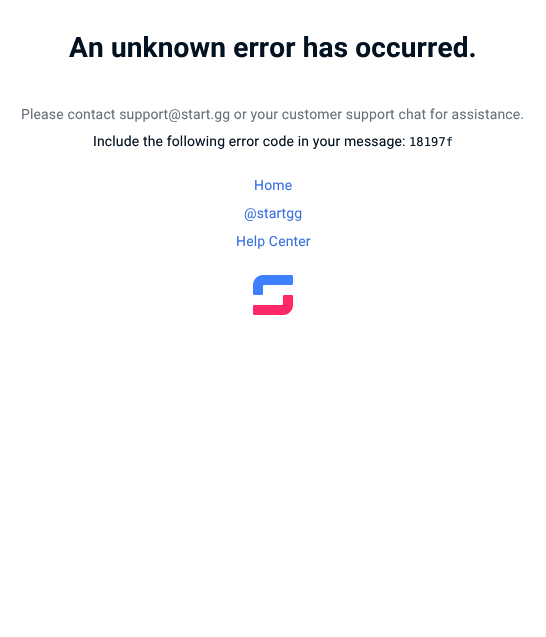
void draw(SkCanvas* canvas) {
    SkPaint paint;
    paint.setAntiAlias(true);
    auto spacedText = [&](const char* s, float x, float y, const SkFont& font, const SkPaint& ink, float letter, float word) {
        std::vector<SkGlyphID> glyphs(font.countText(s, strlen(s), SkTextEncoding::kUTF8));
        std::vector<float> xs(glyphs.size());
        font.textToGlyphs(s, strlen(s), SkTextEncoding::kUTF8, glyphs);
        font.getXPos(glyphs, xs, x);
        float extra = 0;
        for (size_t i = 0; i < glyphs.size(); i++) {
            xs[i] += extra;
            extra += letter + word * (glyphs[i] == font.unicharToGlyph(' '));
        }
        canvas->drawTextBlob(SkTextBlob::MakeFromPosHGlyphs(glyphs, xs, y, font), 0, 0, ink);
    };
    canvas->clear(0xFFFFFFFF);
    SkFont font1(fontMgr->matchFamilyStyle("Roboto", SkFontStyle::Bold()), 28);
    font1.setSubpixel(true);
    paint.setColor(0xFF031221);
    spacedText("An unknown error has occurred.", 69, 57, font1, paint, 0.15f, 0);
    SkFont font2(fontMgr->matchFamilyStyle("Roboto", SkFontStyle::Normal()), 14);
    font2.setSubpixel(true);
    paint.setColor(0xFF68717A);
    spacedText("Please contact support@start.gg or your customer support chat for assistance.", 21, 119, font2, paint, 0.15f, 0);
    paint.setColor(0xFF031221);
    spacedText("Include the following error code in your message:", 93, 146, font2, paint, 0.15f, 0);
    SkFont font3(fontMgr->matchFamilyStyle("DejaVu Sans Mono", SkFontStyle::Normal()), 12);
    font3.setSubpixel(true);
    spacedText("18197f", 409, 146, font3, paint, 0.15f, 0);
    paint.setColor(0xFF3870E0);
    spacedText("Home", 254, 190, font2, paint, 0.15f, 0);
    spacedText("@startgg", 244, 218, font2, paint, 0.15f, 0);
    spacedText("Help Center", 236, 246, font2, paint, 0.15f, 0);
    canvas->drawImageRect(SkImages::DeferredFromEncodedData(SkData::MakeFromFileName("img1.png")), SkRect::MakeXYWH(253, 275, 40, 40), SkSamplingOptions());
}
